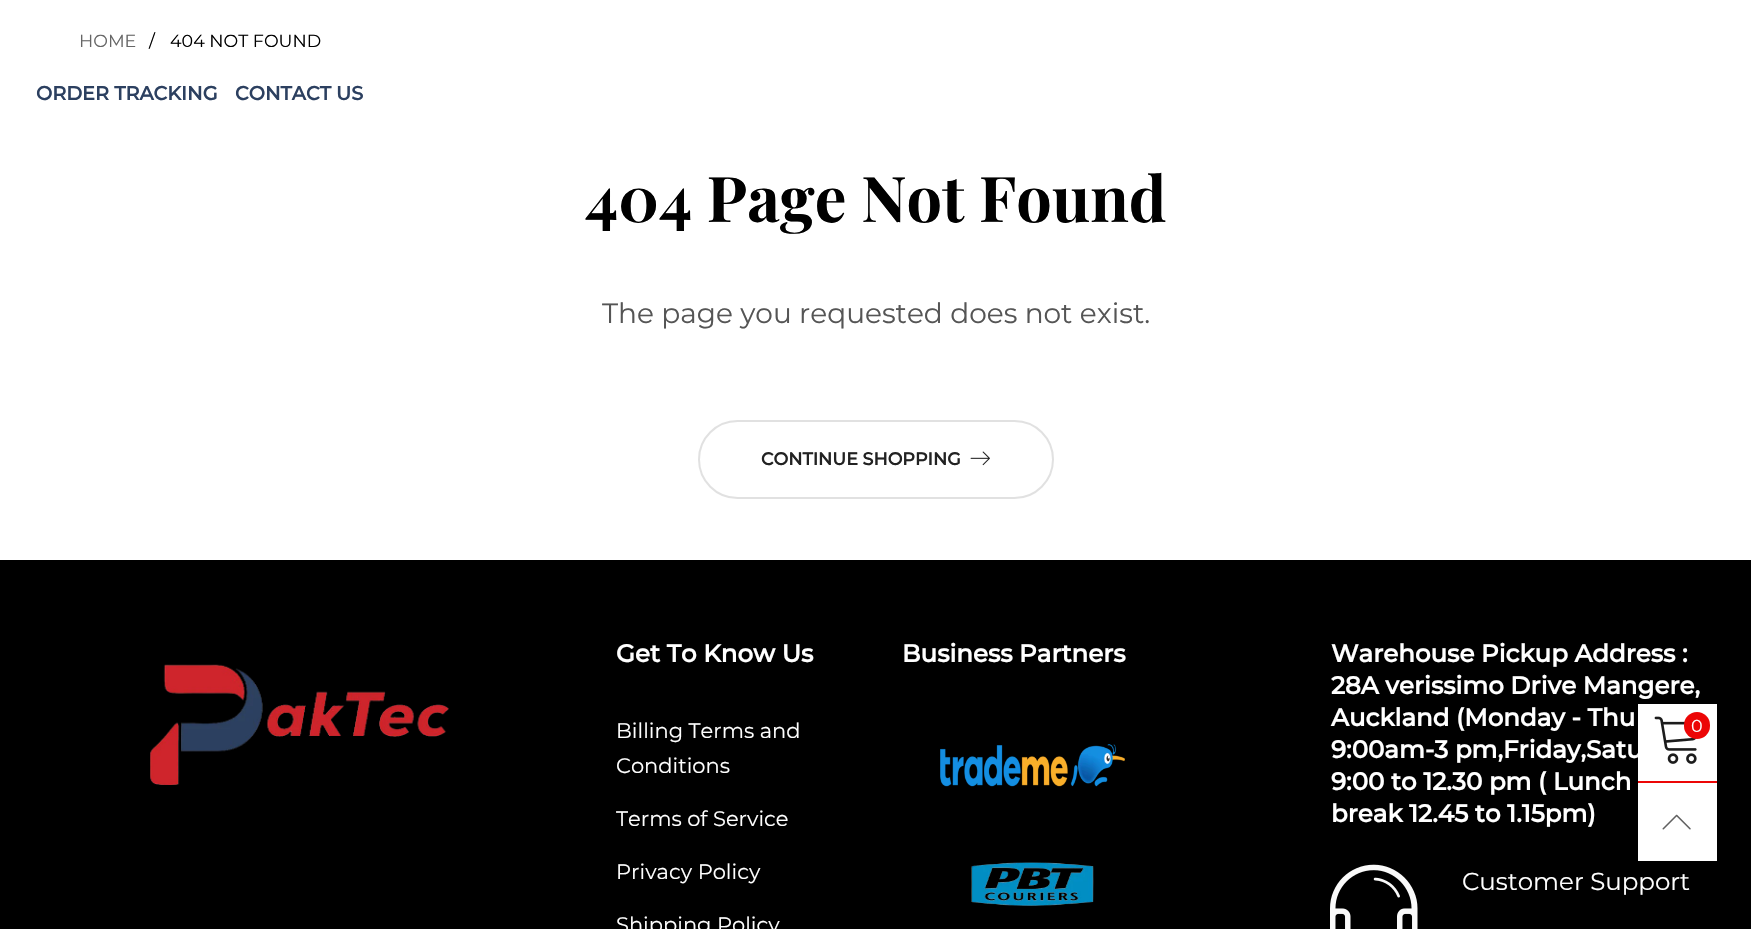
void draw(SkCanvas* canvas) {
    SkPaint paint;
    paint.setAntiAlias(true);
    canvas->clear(0xFFFFFFFF);
    SkFont font1(fontMgr->matchFamilyStyle("Montserrat", SkFontStyle::Normal()), 17.5f);
    font1.setSubpixel(true);
    paint.setColor(0xFF666666);
    canvas->drawString("HOME", 79, 47, font1, paint);
    paint.setColor(0xFF000000);
    canvas->drawString("/", 149, 47, font1, paint);
    canvas->drawString("404 NOT FOUND", 170, 47, font1, paint);
    SkFont font2(fontMgr->matchFamilyStyle("Montserrat", SkFontStyle::Bold()), 19.25f);
    font2.setSubpixel(true);
    paint.setColor(0xFF2C4060);
    canvas->drawString("ORDER TRACKING", 36, 100, font2, paint);
    canvas->drawString("CONTACT US", 235, 100, font2, paint);
    SkFont font3(fontMgr->matchFamilyStyle("Playfair Display", SkFontStyle::Bold()), 63);
    font3.setSubpixel(true);
    paint.setColor(0xFF000000);
    canvas->drawString("404 Page Not Found", 585, 222, font3, paint);
    SkFont font4(fontMgr->matchFamilyStyle("Montserrat", SkFontStyle::Normal()), 28);
    font4.setSubpixel(true);
    paint.setColor(0xFF555555);
    canvas->drawString("The page you requested does not exist.", 602, 323, font4, paint);
    paint.setStyle(SkPaint::kStroke_Style);
    paint.setStrokeWidth(2);
    paint.setColor(0xFFE1E1E1);
    canvas->drawRoundRect(SkRect::MakeXYWH(699, 421, 354, 77), 38.5f, 38.5f, paint);
    SkFont font5(fontMgr->matchFamilyStyle("Montserrat", SkFontStyle::Bold()), 17.5f);
    font5.setSubpixel(true);
    paint.setStyle(SkPaint::kFill_Style);
    paint.setColor(0xFF222222);
    canvas->drawString("CONTINUE SHOPPING", 761, 465, font5, paint);
    canvas->drawImageRect(SkImages::DeferredFromEncodedData(SkData::MakeFromFileName("img1.png")), SkRect::MakeXYWH(970, 451, 20, 15), SkSamplingOptions());
    paint.setColor(0xFF000000);
    canvas->drawRect(SkRect::MakeXYWH(0, 560, 1751, 369), paint);
    canvas->drawImageRect(SkImages::DeferredFromEncodedData(SkData::MakeFromFileName("img2.png")), SkRect::MakeXYWH(150, 664, 299, 121), SkSamplingOptions());
    SkFont font6(fontMgr->matchFamilyStyle("Montserrat", SkFontStyle::Bold()), 24.5f);
    font6.setSubpixel(true);
    paint.setColor(0xFFFFFFFF);
    canvas->drawString("Get To Know Us", 616, 662, font6, paint);
    SkFont font7(fontMgr->matchFamilyStyle("Montserrat", SkFontStyle::Normal()), 21);
    font7.setSubpixel(true);
    canvas->drawString("Billing Terms and", 616, 738, font7, paint);
    canvas->drawString("Conditions", 616, 773, font7, paint);
    canvas->drawString("Terms of Service", 616, 826, font7, paint);
    canvas->drawString("Privacy Policy", 616, 879, font7, paint);
    canvas->drawString("Shipping Policy", 616, 932, font7, paint);
    canvas->drawString("Business Partners", 902, 662, font6, paint);
    canvas->drawImageRect(SkImages::DeferredFromEncodedData(SkData::MakeFromFileName("img3.png")), SkRect::MakeXYWH(940, 744, 185, 43), SkSamplingOptions());
    canvas->drawImageRect(SkImages::DeferredFromEncodedData(SkData::MakeFromFileName("img4.png")), SkRect::MakeXYWH(971, 862, 123, 44), SkSamplingOptions());
    canvas->drawString("Warehouse Pickup Address :", 1331, 662, font6, paint);
    canvas->drawString("28A verissimo Drive Mangere,", 1331, 694, font6, paint);
    canvas->drawString("Auckland (Monday - Thu", 1331, 726, font6, paint);
    canvas->drawString("9:00am-3 pm,Friday,Satu", 1331, 758, font6, paint);
    canvas->drawString("9:00 to 12.30 pm ( Lunch", 1331, 790, font6, paint);
    canvas->drawString("break 12.45 to 1.15pm)", 1331, 822, font6, paint);
    canvas->drawImageRect(SkImages::DeferredFromEncodedData(SkData::MakeFromFileName("img5.png")), SkRect::MakeXYWH(1330, 864, 88, 65), SkSamplingOptions());
    SkFont font8(fontMgr->matchFamilyStyle("Montserrat", SkFontStyle::Normal()), 24.5f);
    font8.setSubpixel(true);
    canvas->drawString("Customer Support", 1462, 890, font8, paint);
    paint.setColor(0x26000000);
    paint.setMaskFilter(SkMaskFilter::MakeBlur(kNormal_SkBlurStyle, 2.5f));
    canvas->drawRect(SkRect::MakeXYWH(1638, 704, 79, 157), paint);
    paint.setMaskFilter(nullptr);
    paint.setColor(0xFFFFFFFF);
    canvas->drawRect(SkRect::MakeXYWH(1638, 704, 79, 157), paint);
    paint.setColor(0xFFEC0606);
    canvas->drawRect(SkRect::MakeXYWH(1638, 781, 79, 2), paint);
    canvas->drawImageRect(SkImages::DeferredFromEncodedData(SkData::MakeFromFileName("img6.png")), SkRect::MakeXYWH(1654, 716, 43, 48), SkSamplingOptions());
    canvas->drawRoundRect(SkRect::MakeXYWH(1684, 712, 26, 27), 13, 13, paint);
    paint.setColor(0xFFFFFFFF);
    canvas->drawString("0", 1691, 732, font1, paint);
    canvas->drawImageRect(SkImages::DeferredFromEncodedData(SkData::MakeFromFileName("img7.png")), SkRect::MakeXYWH(1662, 814, 29, 16), SkSamplingOptions());
}
